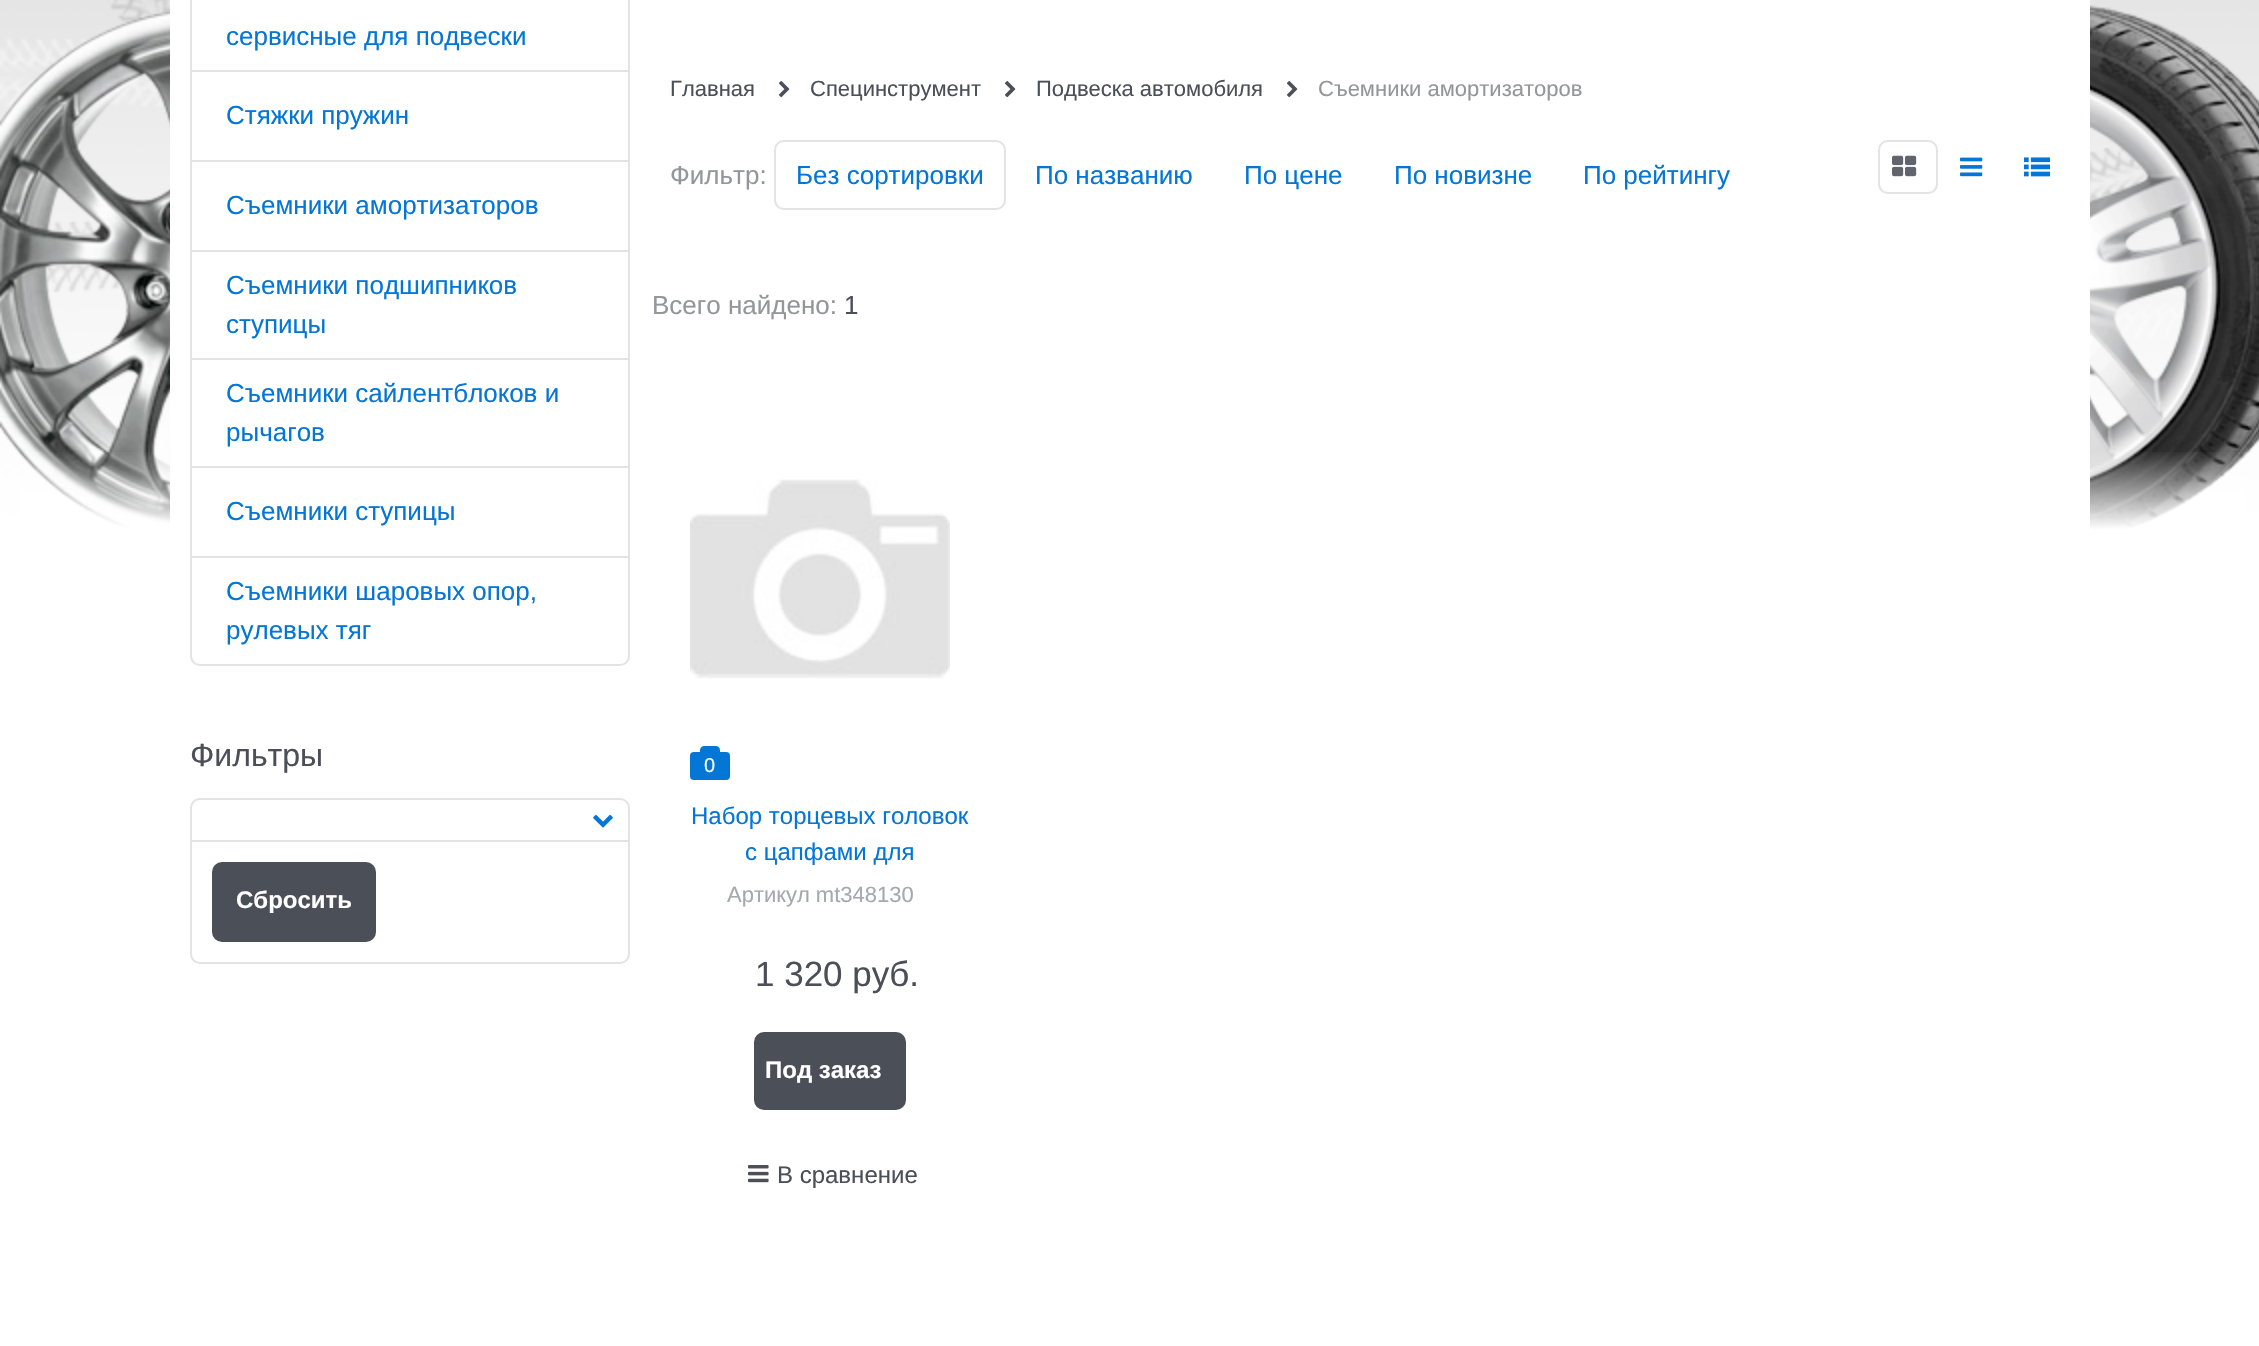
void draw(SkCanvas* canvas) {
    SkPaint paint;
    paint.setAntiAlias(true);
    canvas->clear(0xFFFFFFFF);
    canvas->drawImageRect(SkImages::DeferredFromEncodedData(SkData::MakeFromFileName("img1.png")), SkRect::MakeXYWH(0, 0, 2259, 530), SkSamplingOptions());
    {
        const SkColor colors[] = {0x00FFFFFF, 0xFFFFFFFF, 0xFFFFFFFF, 0x00FFFFFF};
        const float stops[] = {0, 0.4f, 0.6f, 1};
        const SkPoint ends[] = {{1130, 450}, {1130, 650}};
        paint.setShader(SkGradientShader::MakeLinear(ends, colors, stops, 4, SkTileMode::kClamp));
        paint.setAlpha(255);
    }
    canvas->drawRect(SkRect::MakeXYWH(20, 452, 2226, 78), paint);
    paint.setShader(nullptr);
    paint.setColor(0xFFFFFFFF);
    canvas->drawRoundRect(SkRect::MakeXYWH(170, -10, 1920, 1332), 10, 10, paint);
    paint.setStyle(SkPaint::kStroke_Style);
    paint.setStrokeWidth(2);
    paint.setColor(0xFFE2E3E4);
    canvas->drawRoundRect(SkRect::MakeXYWH(191, -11, 438, 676), 9, 9, paint);
    paint.setStyle(SkPaint::kFill_Style);
    canvas->drawRect(SkRect::MakeXYWH(192, 70, 436, 2), paint);
    SkFont font1(fontMgr->matchFamilyStyle("Liberation Sans", SkFontStyle::Normal()), 26);
    font1.setSubpixel(true);
    paint.setColor(0xFF0476D6);
    canvas->drawString("сервисные для подвески", 226, 45, font1, paint);
    paint.setColor(0xFFE2E3E4);
    canvas->drawRect(SkRect::MakeXYWH(192, 160, 436, 2), paint);
    paint.setColor(0xFF0476D6);
    canvas->drawString("Стяжки пружин", 226, 124, font1, paint);
    paint.setColor(0xFFE2E3E4);
    canvas->drawRect(SkRect::MakeXYWH(192, 250, 436, 2), paint);
    paint.setColor(0xFF0476D6);
    canvas->drawString("Съемники амортизаторов", 226, 214, font1, paint);
    paint.setColor(0xFFE2E3E4);
    canvas->drawRect(SkRect::MakeXYWH(192, 358, 436, 2), paint);
    paint.setColor(0xFF0476D6);
    canvas->drawString("Съемники подшипников", 226, 294, font1, paint);
    canvas->drawString("ступицы", 226, 333, font1, paint);
    paint.setColor(0xFFE2E3E4);
    canvas->drawRect(SkRect::MakeXYWH(192, 466, 436, 2), paint);
    paint.setColor(0xFF0476D6);
    canvas->drawString("Съемники сайлентблоков и", 226, 402, font1, paint);
    canvas->drawString("рычагов", 226, 441, font1, paint);
    paint.setColor(0xFFE2E3E4);
    canvas->drawRect(SkRect::MakeXYWH(192, 556, 436, 2), paint);
    paint.setColor(0xFF0476D6);
    canvas->drawString("Съемники ступицы", 226, 520, font1, paint);
    canvas->drawString("Съемники шаровых опор,", 226, 600, font1, paint);
    canvas->drawString("рулевых тяг", 226, 639, font1, paint);
    SkFont font2(fontMgr->matchFamilyStyle("Liberation Sans", SkFontStyle::Normal()), 32);
    font2.setSubpixel(true);
    paint.setColor(0xFF4B4F58);
    canvas->drawString("Фильтры", 190, 766, font2, paint);
    paint.setStyle(SkPaint::kStroke_Style);
    paint.setColor(0xFFE2E3E4);
    canvas->drawRoundRect(SkRect::MakeXYWH(191, 799, 438, 164), 9, 9, paint);
    canvas->drawImageRect(SkImages::DeferredFromEncodedData(SkData::MakeFromFileName("img2.png")), SkRect::MakeXYWH(593, 814, 20, 14), SkSamplingOptions());
    paint.setStyle(SkPaint::kFill_Style);
    canvas->drawRect(SkRect::MakeXYWH(192, 840, 436, 2), paint);
    paint.setColor(0xFF4B4F58);
    canvas->drawRoundRect(SkRect::MakeXYWH(212, 862, 164, 80), 10, 10, paint);
    SkFont font3(fontMgr->matchFamilyStyle("Liberation Sans", SkFontStyle::Bold()), 24);
    font3.setSubpixel(true);
    paint.setColor(0xFFFFFFFF);
    canvas->drawString("Сбросить", 236, 908, font3, paint);
    SkFont font4(fontMgr->matchFamilyStyle("Liberation Sans", SkFontStyle::Normal()), 22);
    font4.setSubpixel(true);
    paint.setColor(0xFF4B4F58);
    canvas->drawString("Главная", 670, 96, font4, paint);
    canvas->drawImageRect(SkImages::DeferredFromEncodedData(SkData::MakeFromFileName("img3.png")), SkRect::MakeXYWH(778, 81, 12, 17), SkSamplingOptions());
    canvas->drawString("Специнструмент", 810, 96, font4, paint);
    canvas->drawImageRect(SkImages::DeferredFromEncodedData(SkData::MakeFromFileName("img3.png")), SkRect::MakeXYWH(1004, 81, 12, 17), SkSamplingOptions());
    canvas->drawString("Подвеска автомобиля", 1036, 96, font4, paint);
    canvas->drawImageRect(SkImages::DeferredFromEncodedData(SkData::MakeFromFileName("img3.png")), SkRect::MakeXYWH(1286, 81, 12, 17), SkSamplingOptions());
    paint.setColor(0xFF94969B);
    canvas->drawString("Съемники амортизаторов", 1318, 96, font4, paint);
    canvas->drawString("Фильтр:", 670, 184, font1, paint);
    paint.setStyle(SkPaint::kStroke_Style);
    paint.setColor(0xFFE2E3E4);
    canvas->drawRoundRect(SkRect::MakeXYWH(775, 141, 230, 68), 9, 9, paint);
    paint.setStyle(SkPaint::kFill_Style);
    paint.setColor(0xFF0476D6);
    canvas->drawString("Без сортировки", 796, 184, font1, paint);
    canvas->drawString("По названию", 1035, 184, font1, paint);
    canvas->drawString("По цене", 1244, 184, font1, paint);
    canvas->drawString("По новизне", 1394, 184, font1, paint);
    canvas->drawString("По рейтингу", 1583, 184, font1, paint);
    paint.setColor(0xFF94969B);
    canvas->drawString("Всего найдено:", 652, 314, font1, paint);
    paint.setColor(0xFF4B4F58);
    canvas->drawString("1", 844, 314, font1, paint);
    paint.setStyle(SkPaint::kStroke_Style);
    paint.setColor(0xFFE2E3E4);
    canvas->drawRoundRect(SkRect::MakeXYWH(1879, 141, 58, 52), 9, 9, paint);
    canvas->drawImageRect(SkImages::DeferredFromEncodedData(SkData::MakeFromFileName("img4.png")), SkRect::MakeXYWH(1892, 155, 25, 22), SkSamplingOptions());
    canvas->drawImageRect(SkImages::DeferredFromEncodedData(SkData::MakeFromFileName("img5.png")), SkRect::MakeXYWH(1960, 157, 23, 20), SkSamplingOptions());
    canvas->drawImageRect(SkImages::DeferredFromEncodedData(SkData::MakeFromFileName("img6.png")), SkRect::MakeXYWH(2024, 157, 26, 20), SkSamplingOptions());
    canvas->drawImageRect(SkImages::DeferredFromEncodedData(SkData::MakeFromFileName("img7.png")), SkRect::MakeXYWH(690, 479, 260, 200), SkSamplingOptions());
    paint.setStyle(SkPaint::kFill_Style);
    paint.setColor(0xFF0476D6);
    canvas->drawRoundRect(SkRect::MakeXYWH(690, 752, 40, 28), 4, 4, paint);
    canvas->drawPath(SkPathBuilder().moveTo(704, 746).lineTo(716, 746).cubicTo(718, 746, 720, 748, 720, 750).lineTo(720, 752).lineTo(700, 752).lineTo(700, 750).cubicTo(700, 748, 702, 746, 704, 746).close().detach(), paint);
    SkFont font5(fontMgr->matchFamilyStyle("Liberation Sans", SkFontStyle::Normal()), 20);
    font5.setSubpixel(true);
    paint.setColor(0xFFFFFFFF);
    canvas->drawString("0", 704, 772, font5, paint);
    SkFont font6(fontMgr->matchFamilyStyle("Liberation Sans", SkFontStyle::Normal()), 24);
    font6.setSubpixel(true);
    paint.setColor(0xFF0476D6);
    canvas->drawString("Набор торцевых головок", 691, 824, font6, paint);
    canvas->drawString("с цапфами для", 745, 860, font6, paint);
    paint.setColor(0xFFA5A8AF);
    canvas->drawString("Артикул mt348130", 727, 902, font4, paint);
    SkFont font7(fontMgr->matchFamilyStyle("Liberation Sans", SkFontStyle::Normal()), 35);
    font7.setSubpixel(true);
    paint.setColor(0xFF4B4F58);
    canvas->drawString("1 320 руб.", 755, 986, font7, paint);
    canvas->drawRoundRect(SkRect::MakeXYWH(754, 1032, 152, 78), 10, 10, paint);
    paint.setColor(0xFFFFFFFF);
    canvas->drawString("Под заказ", 765, 1078, font3, paint);
    canvas->drawImageRect(SkImages::DeferredFromEncodedData(SkData::MakeFromFileName("img8.png")), SkRect::MakeXYWH(748, 1165, 21, 18), SkSamplingOptions());
    paint.setColor(0xFF4B4F58);
    canvas->drawString("В сравнение", 777, 1183, font6, paint);
}
